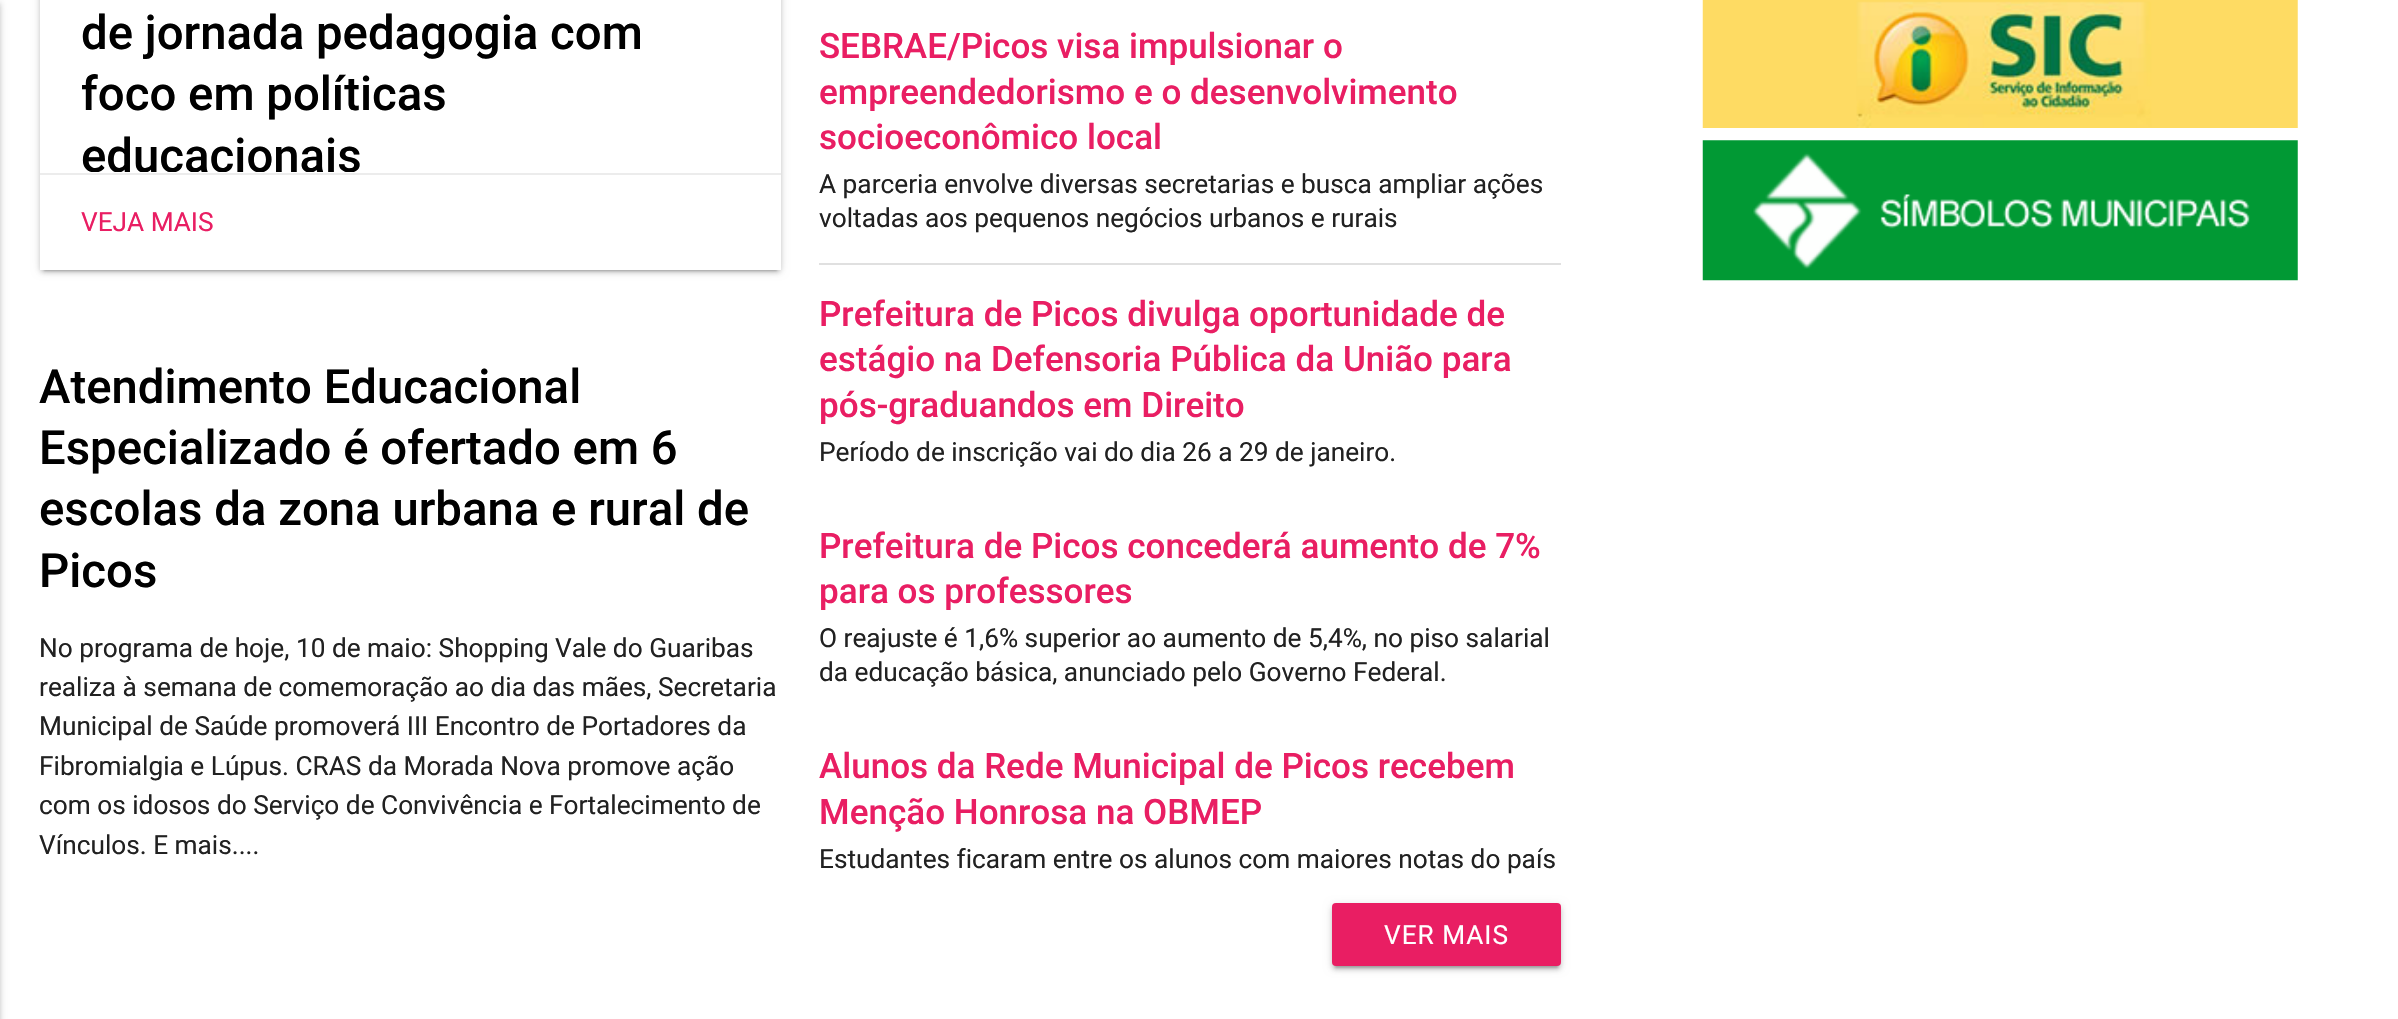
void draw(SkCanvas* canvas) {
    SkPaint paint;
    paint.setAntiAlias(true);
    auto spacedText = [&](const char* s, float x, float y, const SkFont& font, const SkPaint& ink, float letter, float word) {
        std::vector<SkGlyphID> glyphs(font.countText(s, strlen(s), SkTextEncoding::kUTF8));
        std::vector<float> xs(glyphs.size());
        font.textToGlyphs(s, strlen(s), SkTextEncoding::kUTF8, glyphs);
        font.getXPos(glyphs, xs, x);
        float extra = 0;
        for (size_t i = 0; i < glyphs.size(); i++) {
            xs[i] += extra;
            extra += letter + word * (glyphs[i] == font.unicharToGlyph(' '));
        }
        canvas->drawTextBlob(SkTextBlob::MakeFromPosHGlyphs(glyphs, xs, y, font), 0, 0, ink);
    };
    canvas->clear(0xFFFFFFFF);
    paint.setColor(0x1F000000);
    paint.setMaskFilter(SkMaskFilter::MakeBlur(kNormal_SkBlurStyle, 4.5f));
    canvas->drawRect(SkRect::MakeXYWH(-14, 2, 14, 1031), paint);
    paint.setMaskFilter(nullptr);
    paint.setColor(0x24000000);
    paint.setMaskFilter(SkMaskFilter::MakeBlur(kNormal_SkBlurStyle, 2));
    canvas->drawRect(SkRect::MakeXYWH(-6, 4, 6, 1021), paint);
    paint.setMaskFilter(nullptr);
    paint.setColor(0x33000000);
    paint.setMaskFilter(SkMaskFilter::MakeBlur(kNormal_SkBlurStyle, 1));
    canvas->drawRect(SkRect::MakeXYWH(44, -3, 733, 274), paint);
    paint.setMaskFilter(nullptr);
    paint.setColor(0x1F000000);
    paint.setMaskFilter(SkMaskFilter::MakeBlur(kNormal_SkBlurStyle, 4.5f));
    canvas->drawRoundRect(SkRect::MakeXYWH(40, -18, 741, 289), 4, 4, paint);
    paint.setMaskFilter(nullptr);
    paint.setColor(0x24000000);
    paint.setMaskFilter(SkMaskFilter::MakeBlur(kNormal_SkBlurStyle, 2));
    canvas->drawRoundRect(SkRect::MakeXYWH(40, -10, 741, 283), 4, 4, paint);
    paint.setMaskFilter(nullptr);
    paint.setColor(0xFFFFFFFF);
    canvas->drawRect(SkRect::MakeXYWH(40, 0, 741, 173), paint);
    SkFont font1(fontMgr->matchFamilyStyle("Roboto", SkFontStyle(500, SkFontStyle::kNormal_Width, SkFontStyle::kUpright_Slant)), 47.25f);
    font1.setSubpixel(true);
    paint.setColor(0xFF000000);
    canvas->drawString("de jornada pedagogia com", 81, 49, font1, paint);
    canvas->drawString("foco em políticas", 81, 110, font1, paint);
    canvas->save();
    canvas->clipPath(SkPathBuilder().moveTo(40, -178).lineTo(781, -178).lineTo(781, 168).cubicTo(781, 170, 779, 172, 777, 172).lineTo(44, 172).cubicTo(42, 172, 40, 170, 40, 168).close().detach(), true);
    canvas->drawString("educacionais", 81, 172, font1, paint);
    canvas->restore();
    paint.setColor(0xFFFFFFFF);
    canvas->drawRect(SkRect::MakeXYWH(40, 175, 741, 95), paint);
    paint.setColor(0xFFECECEC);
    canvas->drawRect(SkRect::MakeXYWH(40, 173, 741, 2), paint);
    SkFont font2(fontMgr->matchFamilyStyle("Roboto", SkFontStyle::Normal()), 26.25f);
    font2.setSubpixel(true);
    paint.setColor(0xFFE91E63);
    canvas->drawString("VEJA MAIS", 81, 231, font2, paint);
    paint.setColor(0xFF000000);
    canvas->drawString("Atendimento Educacional", 39, 403, font1, paint);
    canvas->drawString("Especializado é ofertado em 6", 39, 464, font1, paint);
    canvas->drawString("escolas da zona urbana e rural de", 39, 525, font1, paint);
    canvas->drawString("Picos", 39, 587, font1, paint);
    paint.setColor(0xFF212121);
    canvas->drawString("No programa de hoje, 10 de maio: Shopping Vale do Guaribas", 39, 657, font2, paint);
    canvas->drawString("realiza à semana de comemoração ao dia das mães, Secretaria", 39, 696, font2, paint);
    canvas->drawString("Municipal de Saúde promoverá III Encontro de Portadores da", 39, 735, font2, paint);
    canvas->drawString("Fibromialgia e Lúpus. CRAS da Morada Nova promove ação", 39, 775, font2, paint);
    canvas->drawString("com os idosos do Serviço de Convivência e Fortalecimento de", 39, 814, font2, paint);
    canvas->drawString("Vínculos. E mais....", 39, 854, font2, paint);
    SkFont font3(fontMgr->matchFamilyStyle("Roboto", SkFontStyle(500, SkFontStyle::kNormal_Width, SkFontStyle::kUpright_Slant)), 35);
    font3.setSubpixel(true);
    paint.setColor(0xFFE91E63);
    canvas->drawString("SEBRAE/Picos visa impulsionar o", 819, 58, font3, paint);
    canvas->drawString("empreendedorismo e o desenvolvimento", 819, 104, font3, paint);
    canvas->drawString("socioeconômico local", 819, 149, font3, paint);
    paint.setColor(0xFF212121);
    canvas->drawString("A parceria envolve diversas secretarias e busca ampliar ações", 819, 193, font2, paint);
    canvas->drawString("voltadas aos pequenos negócios urbanos e rurais", 819, 227, font2, paint);
    paint.setColor(0xFFE0E0E0);
    canvas->drawRect(SkRect::MakeXYWH(819, 263, 742, 2), paint);
    paint.setColor(0xFFE91E63);
    canvas->drawString("Prefeitura de Picos divulga oportunidade de", 819, 326, font3, paint);
    canvas->drawString("estágio na Defensoria Pública da União para", 819, 371, font3, paint);
    canvas->drawString("pós-graduandos em Direito", 819, 417, font3, paint);
    paint.setColor(0xFF212121);
    canvas->drawString("Período de inscrição vai do dia 26 a 29 de janeiro.", 819, 461, font2, paint);
    paint.setColor(0xFFE91E63);
    canvas->drawString("Prefeitura de Picos concederá aumento de 7%", 819, 558, font3, paint);
    canvas->drawString("para os professores", 819, 603, font3, paint);
    paint.setColor(0xFF212121);
    canvas->drawString("O reajuste é 1,6% superior ao aumento de 5,4%, no piso salarial", 819, 647, font2, paint);
    canvas->drawString("da educação básica, anunciado pelo Governo Federal.", 819, 681, font2, paint);
    paint.setColor(0xFFE91E63);
    canvas->drawString("Alunos da Rede Municipal de Picos recebem", 819, 778, font3, paint);
    canvas->drawString("Menção Honrosa na OBMEP", 819, 824, font3, paint);
    paint.setColor(0xFF212121);
    canvas->drawString("Estudantes ficaram entre os alunos com maiores notas do país", 819, 868, font2, paint);
    paint.setColor(0x33000000);
    paint.setMaskFilter(SkMaskFilter::MakeBlur(kNormal_SkBlurStyle, 1));
    canvas->drawRect(SkRect::MakeXYWH(1335, 912, 223, 56), paint);
    paint.setMaskFilter(nullptr);
    paint.setColor(0x1F000000);
    paint.setMaskFilter(SkMaskFilter::MakeBlur(kNormal_SkBlurStyle, 4.5f));
    canvas->drawRoundRect(SkRect::MakeXYWH(1332, 905, 229, 63), 4, 4, paint);
    paint.setMaskFilter(nullptr);
    paint.setColor(0x24000000);
    paint.setMaskFilter(SkMaskFilter::MakeBlur(kNormal_SkBlurStyle, 2));
    canvas->drawRoundRect(SkRect::MakeXYWH(1332, 907, 229, 63), 4, 4, paint);
    paint.setMaskFilter(nullptr);
    paint.setColor(0xFFE91E63);
    canvas->drawRoundRect(SkRect::MakeXYWH(1332, 903, 229, 63), 4, 4, paint);
    paint.setColor(0xFFFFFFFF);
    spacedText("VER MAIS", 1384, 944, font2, paint, 1, 0);
    canvas->drawImageRect(SkImages::DeferredFromEncodedData(SkData::MakeFromFileName("img1.png")), SkRect::MakeXYWH(1702, 0, 596, 128), SkSamplingOptions());
    canvas->drawImageRect(SkImages::DeferredFromEncodedData(SkData::MakeFromFileName("img2.png")), SkRect::MakeXYWH(1702, 140, 596, 141), SkSamplingOptions());
}
